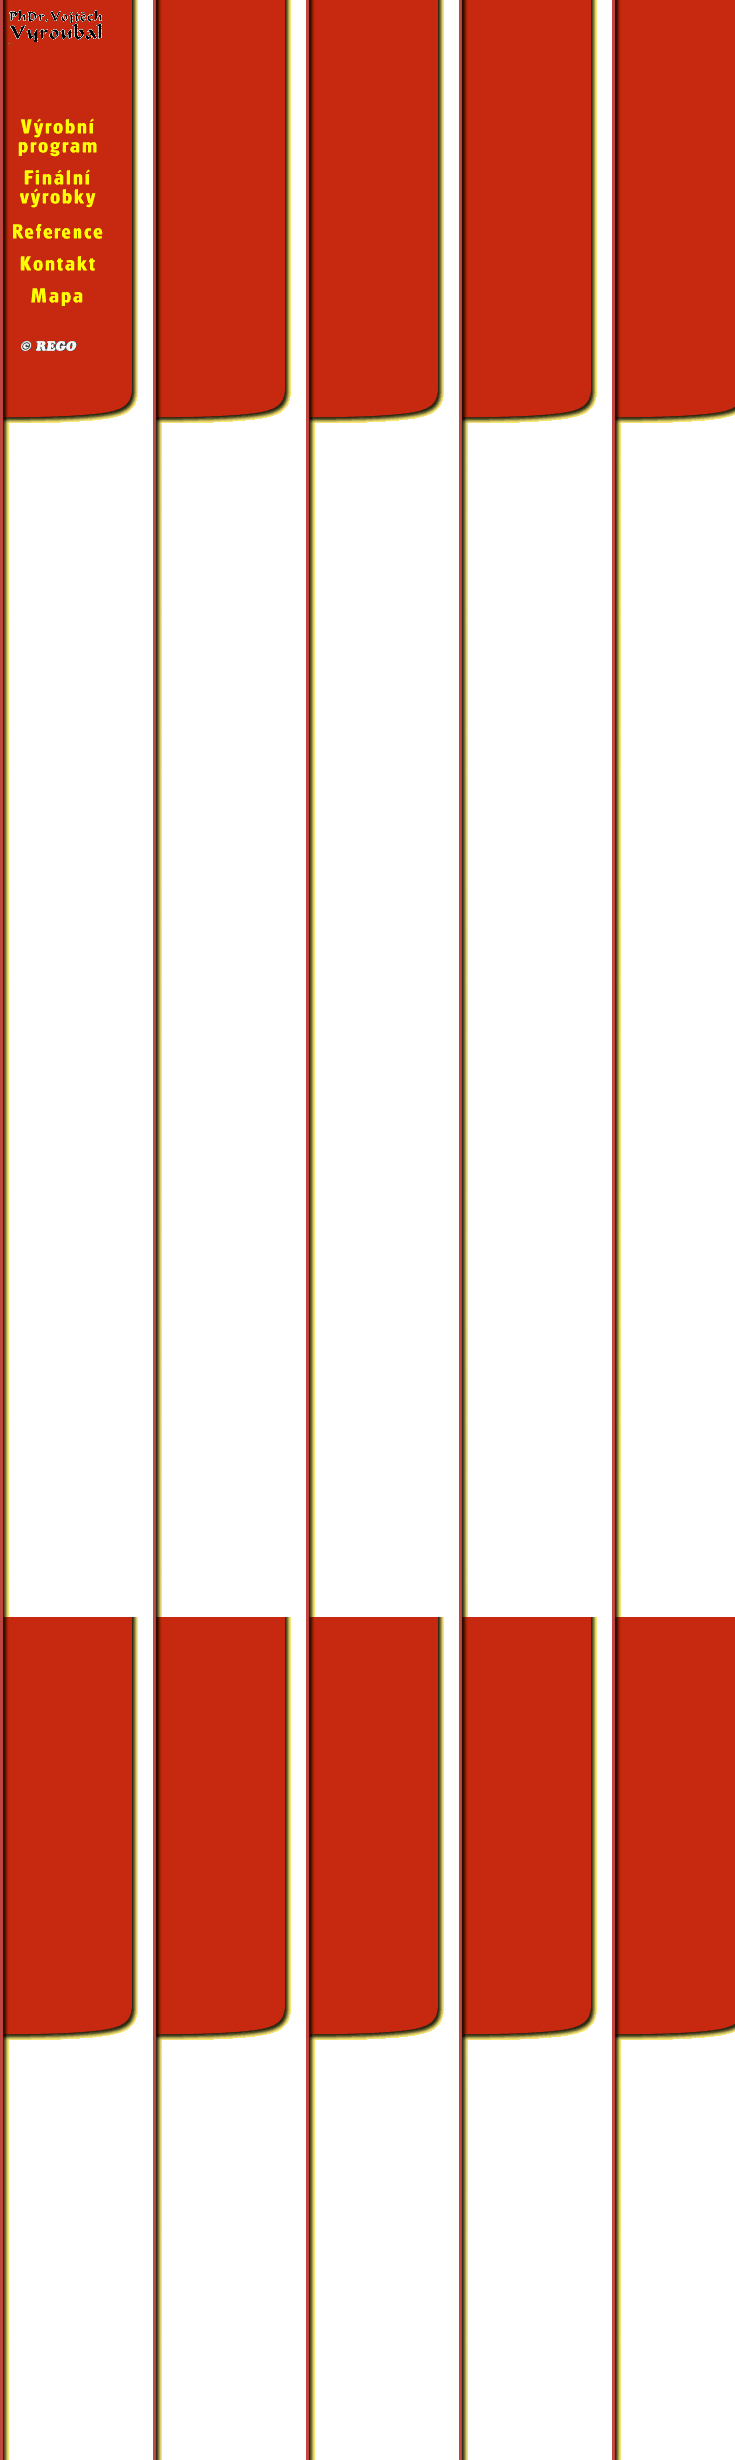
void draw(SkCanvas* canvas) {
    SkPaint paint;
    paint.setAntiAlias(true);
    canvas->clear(0xFFFFFFFF);
    canvas->drawImageRect(SkImages::DeferredFromEncodedData(SkData::MakeFromFileName("img1.png")), SkRect::MakeXYWH(0, 0, 735, 2460), SkSamplingOptions());
    canvas->drawImageRect(SkImages::DeferredFromEncodedData(SkData::MakeFromFileName("img2.png")), SkRect::MakeXYWH(9, 10, 93, 32), SkSamplingOptions());
    paint.setColor(0xFFB37947);
    canvas->drawRect(SkRect::MakeXYWH(8, 43, 1, 1), paint);
    paint.setColor(0xFF9A4A05);
    canvas->drawRect(SkRect::MakeXYWH(9, 43, 1, 1), paint);
    paint.setColor(0xFFA44608);
    canvas->drawRect(SkRect::MakeXYWH(10, 43, 1, 1), paint);
    paint.setColor(0xFFA54A08);
    canvas->drawRect(SkRect::MakeXYWH(11, 43, 1, 1), paint);
    paint.setColor(0xFFA44408);
    canvas->drawRect(SkRect::MakeXYWH(12, 43, 1, 1), paint);
    paint.setColor(0xFF9A4C05);
    canvas->drawRect(SkRect::MakeXYWH(13, 43, 1, 1), paint);
    canvas->drawImageRect(SkImages::DeferredFromEncodedData(SkData::MakeFromFileName("img3.png")), SkRect::MakeXYWH(18, 118, 79, 39), SkSamplingOptions());
    canvas->drawImageRect(SkImages::DeferredFromEncodedData(SkData::MakeFromFileName("img4.png")), SkRect::MakeXYWH(20, 169, 76, 39), SkSamplingOptions());
    canvas->drawImageRect(SkImages::DeferredFromEncodedData(SkData::MakeFromFileName("img5.png")), SkRect::MakeXYWH(13, 224, 90, 15), SkSamplingOptions());
    canvas->drawImageRect(SkImages::DeferredFromEncodedData(SkData::MakeFromFileName("img6.png")), SkRect::MakeXYWH(20, 256, 75, 15), SkSamplingOptions());
    canvas->drawImageRect(SkImages::DeferredFromEncodedData(SkData::MakeFromFileName("img7.png")), SkRect::MakeXYWH(31, 288, 52, 18), SkSamplingOptions());
    canvas->drawImageRect(SkImages::DeferredFromEncodedData(SkData::MakeFromFileName("img8.png")), SkRect::MakeXYWH(21, 341, 56, 10), SkSamplingOptions());
}
